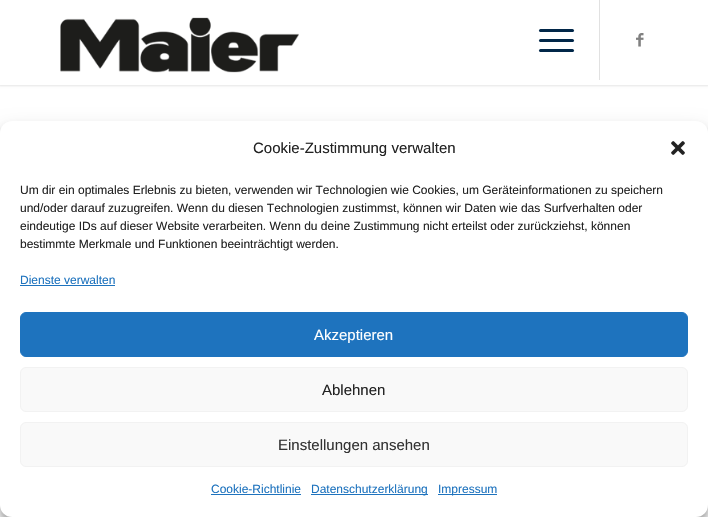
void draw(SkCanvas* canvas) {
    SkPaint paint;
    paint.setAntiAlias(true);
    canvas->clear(0xFFFFFFFF);
    paint.setColor(0x1A000000);
    paint.setMaskFilter(SkMaskFilter::MakeBlur(kNormal_SkBlurStyle, 1));
    canvas->drawRect(SkRect::MakeXYWH(-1, -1, 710, 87), paint);
    paint.setMaskFilter(nullptr);
    paint.setColor(0xFFFFFFFF);
    canvas->drawRect(SkRect::MakeXYWH(0, 0, 708, 85), paint);
    canvas->drawImageRect(SkImages::DeferredFromEncodedData(SkData::MakeFromFileName("img1.png")), SkRect::MakeXYWH(60, 17, 239, 56), SkSamplingOptions());
    paint.setColor(0xFFE1E1E1);
    canvas->drawRect(SkRect::MakeXYWH(599, 0, 1, 80), paint);
    paint.setColor(0xFF012749);
    canvas->drawRoundRect(SkRect::MakeXYWH(539, 39, 35, 3), 1.5f, 1.5f, paint);
    canvas->drawRoundRect(SkRect::MakeXYWH(539, 29, 35, 3), 1.5f, 1.5f, paint);
    canvas->drawRoundRect(SkRect::MakeXYWH(539, 49, 35, 3), 1.5f, 1.5f, paint);
    canvas->drawImageRect(SkImages::DeferredFromEncodedData(SkData::MakeFromFileName("img2.png")), SkRect::MakeXYWH(636, 33, 8, 14), SkSamplingOptions());
    paint.setColor(0x3B000000);
    paint.setMaskFilter(SkMaskFilter::MakeBlur(kNormal_SkBlurStyle, 3));
    canvas->drawRoundRect(SkRect::MakeXYWH(0, 127, 708, 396), 12, 12, paint);
    paint.setMaskFilter(nullptr);
    paint.setColor(0x30000000);
    paint.setMaskFilter(SkMaskFilter::MakeBlur(kNormal_SkBlurStyle, 10));
    canvas->drawRoundRect(SkRect::MakeXYWH(0, 131, 708, 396), 12, 12, paint);
    paint.setMaskFilter(nullptr);
    paint.setColor(0xFFFFFFFF);
    canvas->drawRoundRect(SkRect::MakeXYWH(0, 121, 708, 396), 12, 12, paint);
    SkFont font1(fontMgr->matchFamilyStyle("Liberation Sans", SkFontStyle::Normal()), 15);
    font1.setSubpixel(true);
    paint.setColor(0xFF222222);
    canvas->drawString("Cookie-Zustimmung verwalten", 253, 153, font1, paint);
    canvas->drawImageRect(SkImages::DeferredFromEncodedData(SkData::MakeFromFileName("img3.png")), SkRect::MakeXYWH(671, 141, 14, 14), SkSamplingOptions());
    SkFont font2(fontMgr->matchFamilyStyle("Liberation Sans", SkFontStyle::Normal()), 12);
    font2.setSubpixel(true);
    canvas->drawString("Um dir ein optimales Erlebnis zu bieten, verwenden wir Technologien wie Cookies, um Geräteinformationen zu speichern", 20, 194, font2, paint);
    canvas->drawString("und/oder darauf zuzugreifen. Wenn du diesen Technologien zustimmst, können wir Daten wie das Surfverhalten oder", 20, 212, font2, paint);
    canvas->drawString("eindeutige IDs auf dieser Website verarbeiten. Wenn du deine Zustimmung nicht erteilst oder zurückziehst, können", 20, 230, font2, paint);
    canvas->drawString("bestimmte Merkmale und Funktionen beeinträchtigt werden.", 20, 248, font2, paint);
    paint.setColor(0xFF1E73BE);
    canvas->drawString("Dienste verwalten", 20, 284, font2, paint);
    canvas->drawRect(SkRect::MakeXYWH(20, 285, 95, 1), paint);
    canvas->drawRoundRect(SkRect::MakeXYWH(20.5f, 312.5f, 667, 44), 5.5f, 5.5f, paint);
    paint.setStyle(SkPaint::kStroke_Style);
    paint.setStrokeWidth(1);
    canvas->drawRoundRect(SkRect::MakeXYWH(20.5f, 312.5f, 667, 44), 5.5f, 5.5f, paint);
    paint.setStyle(SkPaint::kFill_Style);
    paint.setColor(0xFFFFFFFF);
    canvas->drawString("Akzeptieren", 314, 340, font1, paint);
    paint.setColor(0xFFF9F9F9);
    canvas->drawRoundRect(SkRect::MakeXYWH(20.5f, 367.5f, 667, 44), 5.5f, 5.5f, paint);
    paint.setStyle(SkPaint::kStroke_Style);
    paint.setColor(0xFFF2F2F2);
    canvas->drawRoundRect(SkRect::MakeXYWH(20.5f, 367.5f, 667, 44), 5.5f, 5.5f, paint);
    paint.setStyle(SkPaint::kFill_Style);
    paint.setColor(0xFF222222);
    canvas->drawString("Ablehnen", 322, 395, font1, paint);
    paint.setColor(0xFFF9F9F9);
    canvas->drawRoundRect(SkRect::MakeXYWH(20.5f, 422.5f, 667, 44), 5.5f, 5.5f, paint);
    paint.setStyle(SkPaint::kStroke_Style);
    paint.setColor(0xFFF2F2F2);
    canvas->drawRoundRect(SkRect::MakeXYWH(20.5f, 422.5f, 667, 44), 5.5f, 5.5f, paint);
    paint.setStyle(SkPaint::kFill_Style);
    paint.setColor(0xFF333333);
    canvas->drawString("Einstellungen ansehen", 278, 450, font1, paint);
    paint.setColor(0xFF1E73BE);
    canvas->drawString("Cookie-Richtlinie", 211, 493, font2, paint);
    canvas->drawRect(SkRect::MakeXYWH(211, 494, 90, 1), paint);
    canvas->drawRect(SkRect::MakeXYWH(311, 494, 117, 1), paint);
    canvas->drawString("Datenschutzerklärung", 311, 493, font2, paint);
    canvas->drawRect(SkRect::MakeXYWH(438, 494, 59, 1), paint);
    canvas->drawString("Impressum", 438, 493, font2, paint);
}
